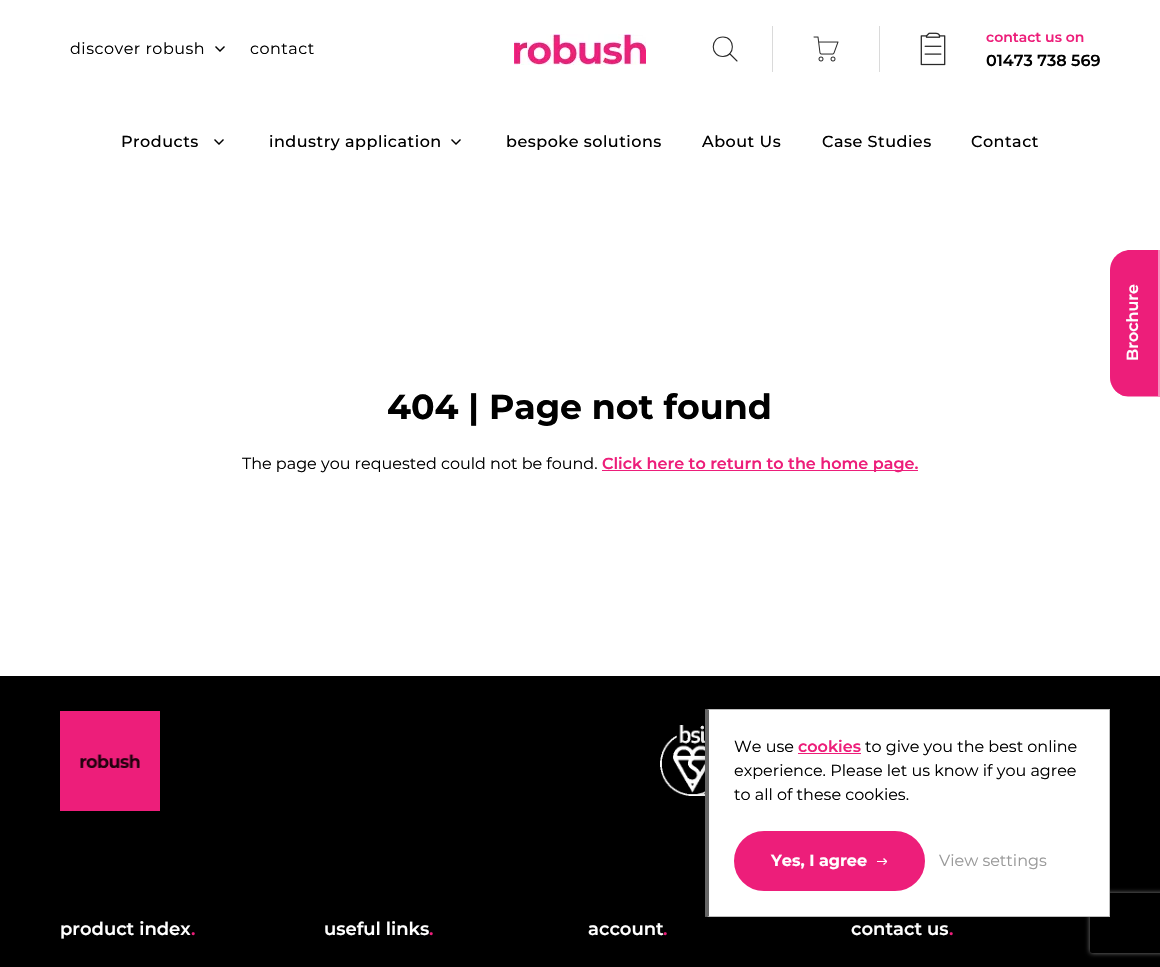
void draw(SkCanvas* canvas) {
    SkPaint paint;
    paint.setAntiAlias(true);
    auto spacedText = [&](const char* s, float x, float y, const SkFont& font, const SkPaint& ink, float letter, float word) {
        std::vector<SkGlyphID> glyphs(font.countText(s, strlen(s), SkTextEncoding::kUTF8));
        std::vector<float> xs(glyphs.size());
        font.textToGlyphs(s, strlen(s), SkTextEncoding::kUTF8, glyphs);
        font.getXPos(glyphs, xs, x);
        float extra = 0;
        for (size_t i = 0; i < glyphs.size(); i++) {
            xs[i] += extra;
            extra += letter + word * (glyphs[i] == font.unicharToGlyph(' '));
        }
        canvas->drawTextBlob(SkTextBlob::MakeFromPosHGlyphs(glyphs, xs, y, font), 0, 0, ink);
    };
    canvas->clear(0xFFFFFFFF);
    SkFont font1(fontMgr->matchFamilyStyle("Montserrat", SkFontStyle::Normal()), 16);
    font1.setSubpixel(true);
    paint.setColor(0xFF000000);
    spacedText("discover robush", 70, 54, font1, paint, 0.5f, 0);
    canvas->drawImageRect(SkImages::DeferredFromEncodedData(SkData::MakeFromFileName("img1.png")), SkRect::MakeXYWH(215, 46, 10, 6), SkSamplingOptions());
    spacedText("contact", 250, 54, font1, paint, 0.5f, 0);
    canvas->drawImageRect(SkImages::DeferredFromEncodedData(SkData::MakeFromFileName("img2.png")), SkRect::MakeXYWH(514, 34, 132, 31), SkSamplingOptions());
    paint.setStyle(SkPaint::kStroke_Style);
    paint.setStrokeWidth(1.1f);
    paint.setStrokeCap(SkPaint::kRound_Cap);
    paint.setStrokeJoin(SkPaint::kRound_Join);
    paint.setColor(0xFF282828);
    canvas->drawPath(SkPathBuilder().moveTo(723, 56.5f).cubicTo(735.5f, 56.5f, 735.5f, 37, 723, 37).cubicTo(710, 37, 710, 56.5f, 723, 56.5f).close().moveTo(737, 61).lineTo(729.5f, 53.5f).detach(), paint);
    paint.setStyle(SkPaint::kFill_Style);
    paint.setColor(0xFFDADADA);
    canvas->drawRect(SkRect::MakeXYWH(879, 26, 1, 46), paint);
    canvas->drawRect(SkRect::MakeXYWH(772, 26, 1, 46), paint);
    canvas->drawImageRect(SkImages::DeferredFromEncodedData(SkData::MakeFromFileName("img3.png")), SkRect::MakeXYWH(813, 36, 26, 26), SkSamplingOptions());
    canvas->drawImageRect(SkImages::DeferredFromEncodedData(SkData::MakeFromFileName("img4.png")), SkRect::MakeXYWH(920, 32, 26, 34), SkSamplingOptions());
    SkFont font2(fontMgr->matchFamilyStyle("Montserrat", SkFontStyle(600, SkFontStyle::kNormal_Width, SkFontStyle::kUpright_Slant)), 14);
    font2.setSubpixel(true);
    paint.setColor(0xFFED1E7A);
    canvas->drawString("contact us on", 986, 42, font2, paint);
    SkFont font3(fontMgr->matchFamilyStyle("Montserrat", SkFontStyle(600, SkFontStyle::kNormal_Width, SkFontStyle::kUpright_Slant)), 16);
    font3.setSubpixel(true);
    paint.setColor(0xFF000000);
    canvas->drawString("01473 738 569", 986, 66, font3, paint);
    SkFont font4(fontMgr->matchFamilyStyle("Montserrat", SkFontStyle(500, SkFontStyle::kNormal_Width, SkFontStyle::kUpright_Slant)), 16);
    font4.setSubpixel(true);
    spacedText("Products", 121, 147, font4, paint, 0.5f, 0);
    canvas->drawImageRect(SkImages::DeferredFromEncodedData(SkData::MakeFromFileName("img1.png")), SkRect::MakeXYWH(214, 139, 10, 6), SkSamplingOptions());
    spacedText("industry application", 269, 147, font4, paint, 0.5f, 0);
    canvas->drawImageRect(SkImages::DeferredFromEncodedData(SkData::MakeFromFileName("img1.png")), SkRect::MakeXYWH(451, 139, 10, 6), SkSamplingOptions());
    spacedText("bespoke solutions", 506, 147, font4, paint, 0.5f, 0);
    spacedText("About Us", 702, 147, font4, paint, 0.5f, 0);
    spacedText("Case Studies", 822, 147, font4, paint, 0.5f, 0);
    spacedText("Contact", 971, 147, font4, paint, 0.5f, 0);
    paint.setColor(0xFFF68FBD);
    canvas->drawPath(SkPathBuilder().moveTo(1130, 250).lineTo(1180, 250).lineTo(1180, 397).lineTo(1130, 397).cubicTo(1119, 397, 1110, 388, 1110, 377).lineTo(1110, 270).cubicTo(1110, 259, 1119, 250, 1130, 250).close().detach(), paint);
    canvas->save();
    canvas->clipPath(SkPathBuilder().moveTo(1130, 250).lineTo(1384, 250).lineTo(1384, 397).lineTo(1130, 397).cubicTo(1119, 397, 1110, 388, 1110, 377).lineTo(1110, 270).cubicTo(1110, 259, 1119, 250, 1130, 250).close().detach(), true);
    paint.setColor(0xFFED1E7A);
    canvas->drawPath(SkPathBuilder().moveTo(1130, 250).lineTo(1158, 250).lineTo(1158, 396).lineTo(1110, 396).lineTo(1110, 270).cubicTo(1110, 259, 1119, 250, 1130, 250).close().detach(), paint);
    canvas->restore();
    paint.setColor(0xFFFFFFFF);
    canvas->save();
    canvas->rotate(-90, 1138, 361);
    canvas->drawString("Brochure", 1138, 361, font3, paint);
    canvas->restore();
    SkFont font5(fontMgr->matchFamilyStyle("Montserrat", SkFontStyle::Bold()), 34.75f);
    font5.setSubpixel(true);
    paint.setColor(0xFF000000);
    canvas->drawString("404 | Page not found", 387, 419, font5, paint);
    canvas->drawString("The page you requested could not be found.", 242, 469, font1, paint);
    paint.setColor(0xFFED1E7A);
    canvas->drawRect(SkRect::MakeXYWH(602, 470, 316, 1), paint);
    canvas->drawString("Click here to return to the home page.", 602, 469, font3, paint);
    paint.setColor(0xFF000000);
    canvas->drawRect(SkRect::MakeXYWH(0, 676, 1160, 291), paint);
    paint.setColor(0xFFED1E7A);
    canvas->drawRect(SkRect::MakeXYWH(60, 711, 100, 100), paint);
    canvas->drawImageRect(SkImages::DeferredFromEncodedData(SkData::MakeFromFileName("img5.png")), SkRect::MakeXYWH(80, 754, 60, 14), SkSamplingOptions());
    canvas->drawImageRect(SkImages::DeferredFromEncodedData(SkData::MakeFromFileName("img6.png")), SkRect::MakeXYWH(660, 725, 45, 71), SkSamplingOptions());
    SkFont font6(fontMgr->matchFamilyStyle("Montserrat", SkFontStyle(600, SkFontStyle::kNormal_Width, SkFontStyle::kUpright_Slant)), 18);
    font6.setSubpixel(true);
    paint.setColor(0xFFFFFFFF);
    canvas->drawString("product index", 60, 935, font6, paint);
    paint.setColor(0xFFED1E7A);
    canvas->drawString(".", 191, 935, font6, paint);
    paint.setColor(0xFFFFFFFF);
    canvas->drawString("useful links", 324, 935, font6, paint);
    paint.setColor(0xFFED1E7A);
    canvas->drawString(".", 429, 935, font6, paint);
    paint.setColor(0xFFFFFFFF);
    canvas->drawString("account", 588, 935, font6, paint);
    paint.setColor(0xFFED1E7A);
    canvas->drawString(".", 663, 935, font6, paint);
    paint.setColor(0xFFFFFFFF);
    canvas->drawString("contact us", 851, 935, font6, paint);
    paint.setColor(0xFFED1E7A);
    canvas->drawString(".", 949, 935, font6, paint);
    paint.setColor(0x33000000);
    paint.setMaskFilter(SkMaskFilter::MakeBlur(kNormal_SkBlurStyle, 5));
    canvas->drawRect(SkRect::MakeXYWH(705, 709, 405, 208), paint);
    paint.setMaskFilter(nullptr);
    canvas->save();
    canvas->clipPath(SkPathBuilder(SkPathFillType::kEvenOdd).moveTo(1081, 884).lineTo(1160, 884).lineTo(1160, 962).lineTo(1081, 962).close().moveTo(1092, 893).lineTo(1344, 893).cubicTo(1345, 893, 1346, 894, 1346, 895).lineTo(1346, 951).cubicTo(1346, 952, 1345, 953, 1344, 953).lineTo(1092, 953).cubicTo(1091, 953, 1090, 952, 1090, 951).lineTo(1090, 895).cubicTo(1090, 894, 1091, 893, 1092, 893).close().detach(), true);
    paint.setColor(0xFF808080);
    paint.setMaskFilter(SkMaskFilter::MakeBlur(kNormal_SkBlurStyle, 2.5f));
    canvas->drawRoundRect(SkRect::MakeXYWH(1090, 893, 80, 60), 2, 2, paint);
    paint.setMaskFilter(nullptr);
    canvas->restore();
    paint.setColor(0xFFFFFFFF);
    canvas->drawRect(SkRect::MakeXYWH(709, 710, 400, 206), paint);
    paint.setColor(0xFFBFBFBF);
    canvas->drawPath(SkPathBuilder().moveTo(705, 709).lineTo(1110, 709).lineTo(1109, 710).lineTo(709, 710).close().detach(), paint);
    canvas->drawRect(SkRect::MakeXYWH(1109, 709, 1, 208), paint);
    canvas->drawPath(SkPathBuilder().moveTo(1110, 917).lineTo(705, 917).lineTo(709, 916).lineTo(1109, 916).close().detach(), paint);
    paint.setColor(0xFF666666);
    canvas->drawPath(SkPathBuilder().moveTo(705, 917).lineTo(705, 709).lineTo(709, 710).lineTo(709, 916).close().detach(), paint);
    paint.setColor(0xFF000000);
    canvas->drawString("We use", 734, 752, font1, paint);
    paint.setColor(0xFFED1E7A);
    canvas->drawString("cookies", 798, 752, font3, paint);
    canvas->drawRect(SkRect::MakeXYWH(798, 753, 63, 1), paint);
    paint.setColor(0xFF000000);
    canvas->drawString("to give you the best online", 865, 752, font1, paint);
    canvas->drawString("experience. Please let us know if you agree", 734, 776, font1, paint);
    canvas->drawString("to all of these cookies.", 734, 800, font1, paint);
    paint.setColor(0xFFED1E7A);
    canvas->drawRoundRect(SkRect::MakeXYWH(735, 832, 189, 58), 29, 29, paint);
    paint.setStyle(SkPaint::kStroke_Style);
    paint.setStrokeWidth(2);
    paint.setStrokeCap(SkPaint::kButt_Cap);
    paint.setStrokeJoin(SkPaint::kMiter_Join);
    canvas->drawRoundRect(SkRect::MakeXYWH(735, 832, 189, 58), 29, 29, paint);
    SkFont font7(fontMgr->matchFamilyStyle("Montserrat", SkFontStyle::Bold()), 16);
    font7.setSubpixel(true);
    paint.setStyle(SkPaint::kFill_Style);
    paint.setColor(0xFFFFFFFF);
    canvas->drawString("Yes, I agree", 771, 866, font7, paint);
    canvas->drawImageRect(SkImages::DeferredFromEncodedData(SkData::MakeFromFileName("img7.png")), SkRect::MakeXYWH(877, 858, 10, 7), SkSamplingOptions());
    paint.setColor(0xFF999999);
    canvas->drawString("View settings", 939, 866, font1, paint);
}
